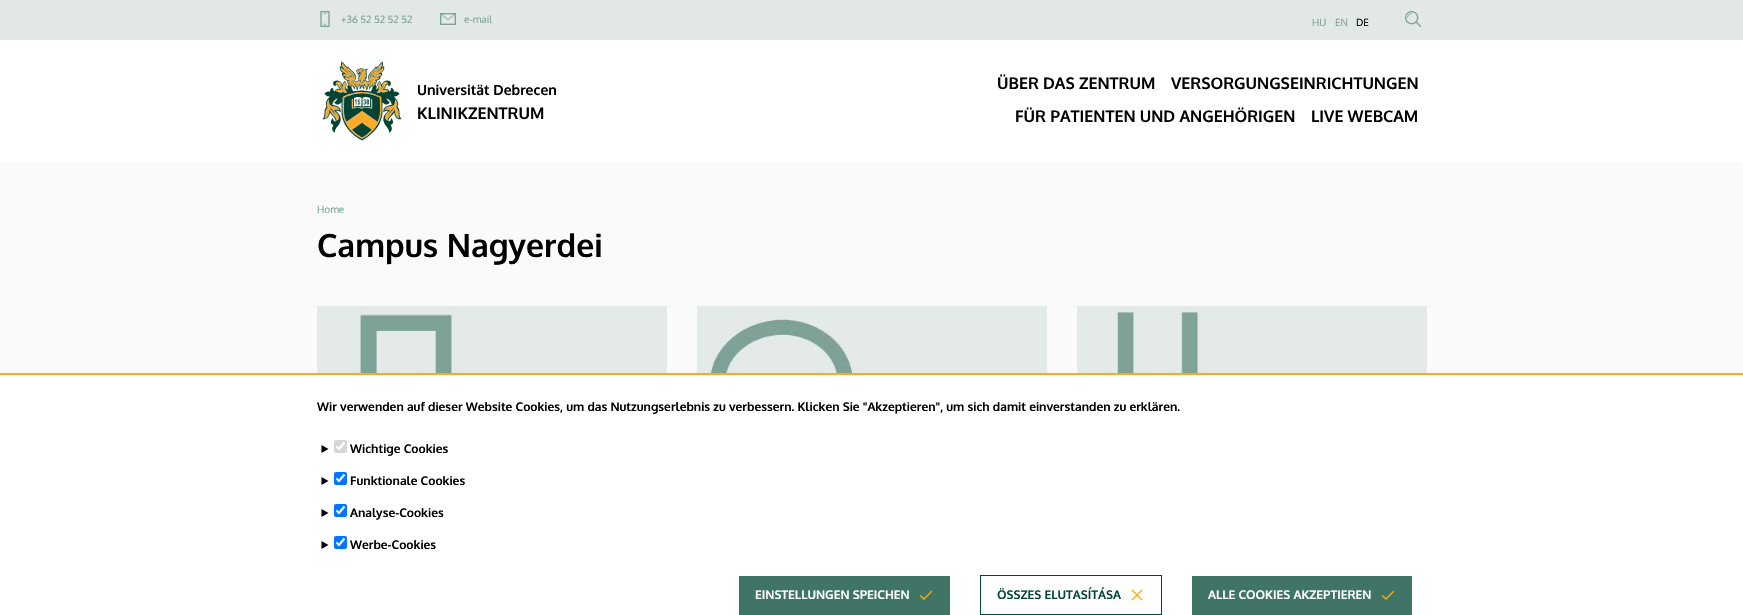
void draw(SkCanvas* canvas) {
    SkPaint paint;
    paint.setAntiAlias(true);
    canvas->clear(0xFFFAFAFA);
    paint.setColor(0xFFE1E8E6);
    canvas->drawRect(SkRect::MakeXYWH(0, 0, 1743, 40), paint);
    canvas->drawImageRect(SkImages::DeferredFromEncodedData(SkData::MakeFromFileName("img1.png")), SkRect::MakeXYWH(320, 11, 10, 16), SkSamplingOptions());
    SkFont font1(fontMgr->matchFamilyStyle("Oxygen", SkFontStyle::Normal()), 10);
    font1.setSubpixel(true);
    paint.setColor(0xFF7DA198);
    canvas->drawString("+36 52 52 52 52", 341, 23, font1, paint);
    canvas->drawImageRect(SkImages::DeferredFromEncodedData(SkData::MakeFromFileName("img2.png")), SkRect::MakeXYWH(440, 13, 16, 12), SkSamplingOptions());
    canvas->drawString("e-mail", 464, 23, font1, paint);
    canvas->drawString("HU", 1312, 26, font1, paint);
    canvas->drawString("EN", 1335, 26, font1, paint);
    paint.setColor(0xFF000000);
    canvas->drawString("DE", 1356, 26, font1, paint);
    canvas->drawImageRect(SkImages::DeferredFromEncodedData(SkData::MakeFromFileName("img3.png")), SkRect::MakeXYWH(1405, 11, 17, 16), SkSamplingOptions());
    paint.setColor(0xFFFFFFFF);
    canvas->drawRect(SkRect::MakeXYWH(0, 40, 1743, 122), paint);
    canvas->drawImageRect(SkImages::DeferredFromEncodedData(SkData::MakeFromFileName("img4.png")), SkRect::MakeXYWH(322, 61, 80, 80), SkSamplingOptions());
    SkFont font2(fontMgr->matchFamilyStyle("Oxygen", SkFontStyle::Bold()), 14);
    font2.setSubpixel(true);
    paint.setColor(0xFF000000);
    canvas->drawString("Universität Debrecen", 417, 95, font2, paint);
    SkFont font3(fontMgr->matchFamilyStyle("Oxygen", SkFontStyle::Bold()), 16);
    font3.setSubpixel(true);
    canvas->drawString("KLINIKZENTRUM", 417, 119, font3, paint);
    canvas->drawString("ÜBER DAS ZENTRUM", 997, 89, font3, paint);
    canvas->drawString("VERSORGUNGSEINRICHTUNGEN", 1171, 89, font3, paint);
    canvas->drawString("FÜR PATIENTEN UND ANGEHÖRIGEN", 1015, 122, font3, paint);
    canvas->drawString("LIVE WEBCAM", 1311, 122, font3, paint);
    paint.setColor(0xFF7DA198);
    canvas->drawString("Home", 317, 213, font1, paint);
    SkFont font4(fontMgr->matchFamilyStyle("Oxygen", SkFontStyle::Bold()), 32);
    font4.setSubpixel(true);
    paint.setColor(0xFF000000);
    canvas->drawString("Campus Nagyerdei", 317, 257, font4, paint);
    canvas->drawImageRect(SkImages::DeferredFromEncodedData(SkData::MakeFromFileName("img5.png")), SkRect::MakeXYWH(317, 306, 350, 67), SkSamplingOptions());
    canvas->drawImageRect(SkImages::DeferredFromEncodedData(SkData::MakeFromFileName("img6.png")), SkRect::MakeXYWH(697, 306, 350, 67), SkSamplingOptions());
    canvas->drawImageRect(SkImages::DeferredFromEncodedData(SkData::MakeFromFileName("img7.png")), SkRect::MakeXYWH(1077, 306, 350, 67), SkSamplingOptions());
    paint.setColor(0xFFFFFFFF);
    canvas->drawRect(SkRect::MakeXYWH(0, 375, 1743, 240), paint);
    paint.setColor(0xFFFFAB0D);
    canvas->drawRect(SkRect::MakeXYWH(0, 373, 1743, 2), paint);
    SkFont font5(fontMgr->matchFamilyStyle("Oxygen", SkFontStyle::Bold()), 12);
    font5.setSubpixel(true);
    paint.setColor(0xFF000000);
    canvas->drawString("Wir verwenden auf dieser Website Cookies, um das Nutzungserlebnis zu verbessern. Klicken Sie \"Akzeptieren\", um sich damit einverstanden zu erklären.", 317, 411, font5, paint);
    canvas->drawPath(SkPathBuilder().moveTo(321.5f, 445).lineTo(328.5f, 449).lineTo(321.5f, 453).close().detach(), paint);
    paint.setColor(0xFFD6D6D6);
    canvas->drawRoundRect(SkRect::MakeXYWH(334, 440, 13, 13), 2, 2, paint);
    paint.setStyle(SkPaint::kStroke_Style);
    paint.setStrokeWidth(2.1f);
    paint.setColor(0xFFFFFFFF);
    canvas->drawPath(SkPathBuilder().moveTo(336.5f, 446.5f).lineTo(339, 449).lineTo(344.5f, 442.5f).detach(), paint);
    paint.setStyle(SkPaint::kFill_Style);
    paint.setColor(0xFF000000);
    canvas->drawString("Wichtige Cookies", 350, 453, font5, paint);
    canvas->drawPath(SkPathBuilder().moveTo(321.5f, 477).lineTo(328.5f, 481).lineTo(321.5f, 485).close().detach(), paint);
    paint.setColor(0xFF0075FF);
    canvas->drawRoundRect(SkRect::MakeXYWH(334, 472, 13, 13), 2, 2, paint);
    paint.setStyle(SkPaint::kStroke_Style);
    paint.setColor(0xFFFFFFFF);
    canvas->drawPath(SkPathBuilder().moveTo(336.5f, 478.5f).lineTo(339, 481).lineTo(344.5f, 474.5f).detach(), paint);
    paint.setStyle(SkPaint::kFill_Style);
    paint.setColor(0xFF000000);
    canvas->drawString("Funktionale Cookies", 350, 485, font5, paint);
    canvas->drawPath(SkPathBuilder().moveTo(321.5f, 509).lineTo(328.5f, 513).lineTo(321.5f, 517).close().detach(), paint);
    paint.setColor(0xFF0075FF);
    canvas->drawRoundRect(SkRect::MakeXYWH(334, 504, 13, 13), 2, 2, paint);
    paint.setStyle(SkPaint::kStroke_Style);
    paint.setColor(0xFFFFFFFF);
    canvas->drawPath(SkPathBuilder().moveTo(336.5f, 510.5f).lineTo(339, 513).lineTo(344.5f, 506.5f).detach(), paint);
    paint.setStyle(SkPaint::kFill_Style);
    paint.setColor(0xFF000000);
    canvas->drawString("Analyse-Cookies", 350, 517, font5, paint);
    canvas->drawPath(SkPathBuilder().moveTo(321.5f, 541).lineTo(328.5f, 545).lineTo(321.5f, 549).close().detach(), paint);
    paint.setColor(0xFF0075FF);
    canvas->drawRoundRect(SkRect::MakeXYWH(334, 536, 13, 13), 2, 2, paint);
    paint.setStyle(SkPaint::kStroke_Style);
    paint.setColor(0xFFFFFFFF);
    canvas->drawPath(SkPathBuilder().moveTo(336.5f, 542.5f).lineTo(339, 545).lineTo(344.5f, 538.5f).detach(), paint);
    paint.setStyle(SkPaint::kFill_Style);
    paint.setColor(0xFF000000);
    canvas->drawString("Werbe-Cookies", 350, 549, font5, paint);
    paint.setColor(0xFF3F7467);
    canvas->drawRect(SkRect::MakeXYWH(739, 576, 211, 39), paint);
    paint.setColor(0xFFFFFFFF);
    canvas->drawString("EINSTELLUNGEN SPEICHEN", 755, 599, font5, paint);
    canvas->drawImageRect(SkImages::DeferredFromEncodedData(SkData::MakeFromFileName("img8.png")), SkRect::MakeXYWH(919, 590, 14, 10), SkSamplingOptions());
    paint.setStyle(SkPaint::kStroke_Style);
    paint.setStrokeWidth(1);
    paint.setColor(0xFF004735);
    canvas->drawRect(SkRect::MakeXYWH(980.5f, 575.5f, 181, 39), paint);
    paint.setStyle(SkPaint::kFill_Style);
    canvas->drawString("ÖSSZES ELUTASÍTÁSA", 997, 599, font5, paint);
    canvas->drawImageRect(SkImages::DeferredFromEncodedData(SkData::MakeFromFileName("img9.png")), SkRect::MakeXYWH(1131, 589, 12, 12), SkSamplingOptions());
    paint.setColor(0xFF3F7467);
    canvas->drawRect(SkRect::MakeXYWH(1192, 576, 220, 39), paint);
    paint.setColor(0xFFFFFFFF);
    canvas->drawString("ALLE COOKIES AKZEPTIEREN", 1208, 599, font5, paint);
    canvas->drawImageRect(SkImages::DeferredFromEncodedData(SkData::MakeFromFileName("img8.png")), SkRect::MakeXYWH(1381, 590, 14, 10), SkSamplingOptions());
}
